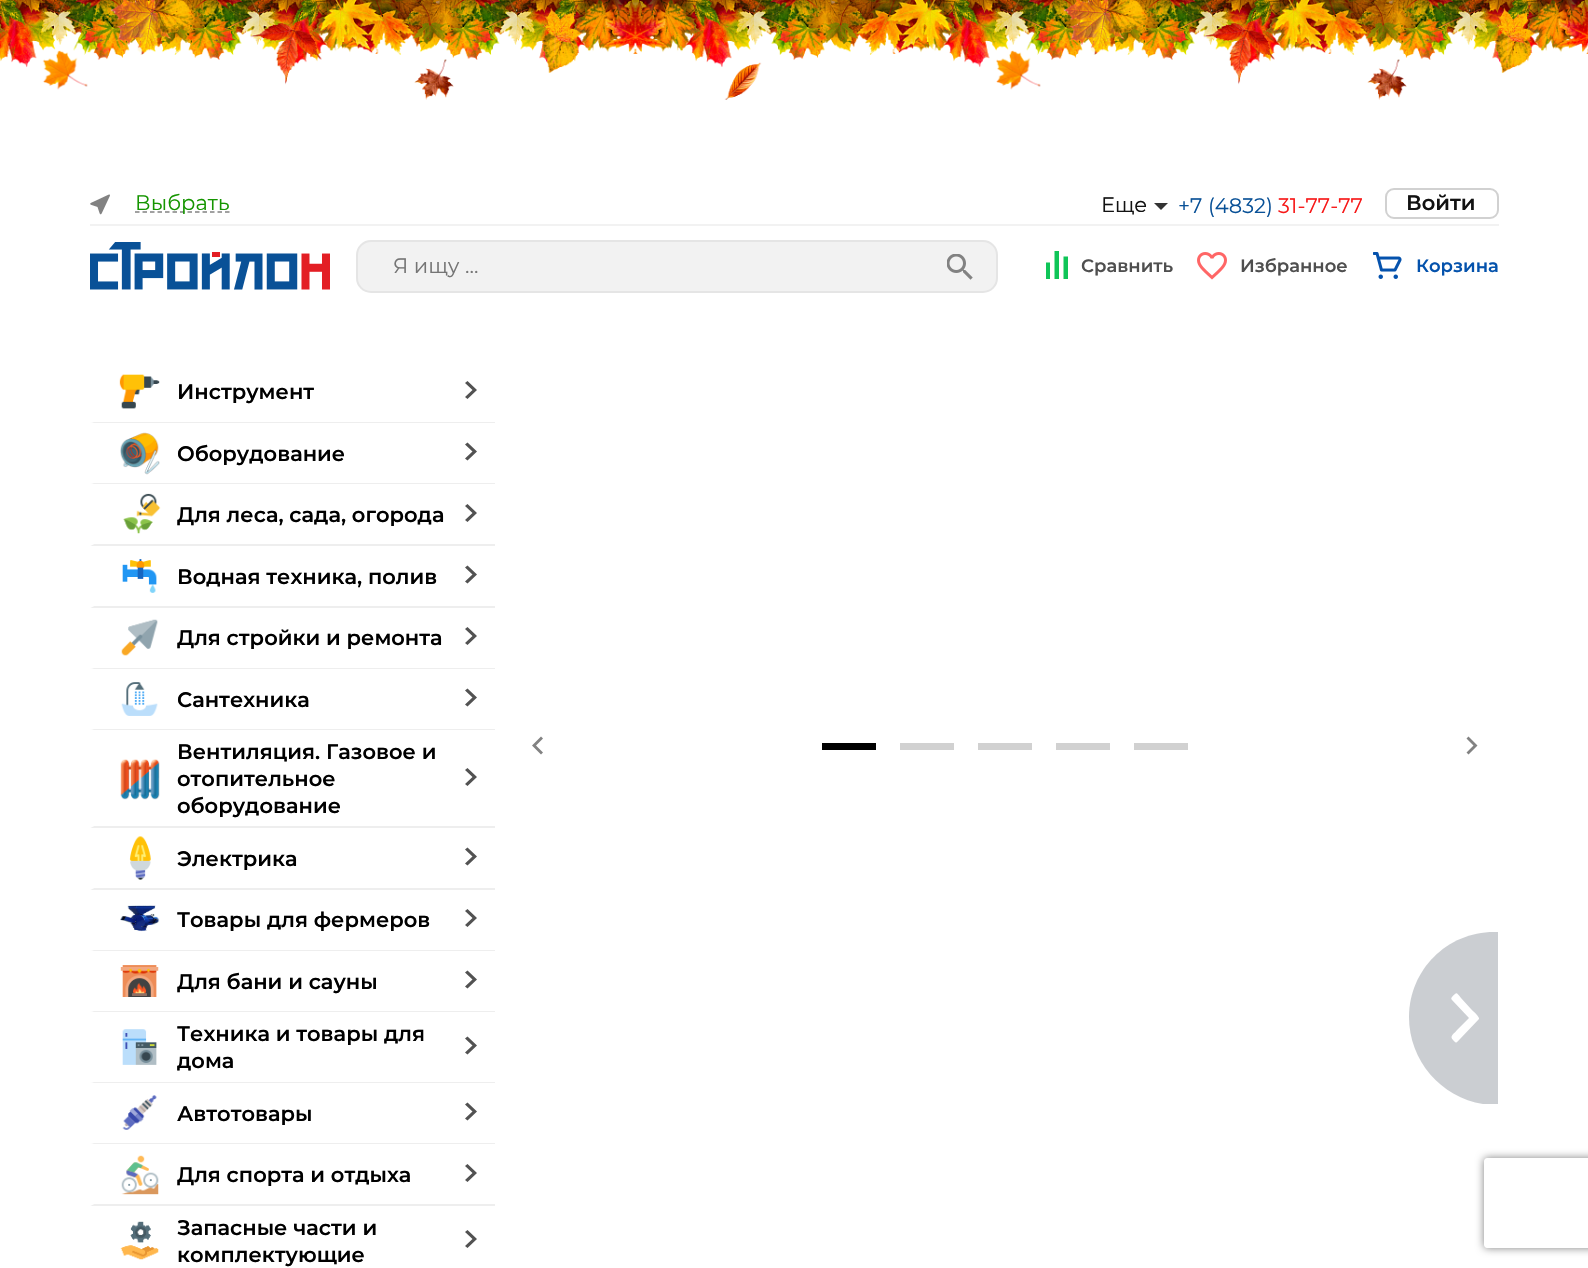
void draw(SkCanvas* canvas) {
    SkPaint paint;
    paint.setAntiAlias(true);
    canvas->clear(0xFFFFFFFF);
    canvas->drawImageRect(SkImages::DeferredFromEncodedData(SkData::MakeFromFileName("img1.png")), SkRect::MakeXYWH(0, 0, 1588, 100), SkSamplingOptions());
    paint.setColor(0xFFF2F2F2);
    canvas->drawRect(SkRect::MakeXYWH(90, 224, 1409, 2), paint);
    canvas->drawImageRect(SkImages::DeferredFromEncodedData(SkData::MakeFromFileName("img2.png")), SkRect::MakeXYWH(90, 194, 20, 21), SkSamplingOptions());
    paint.setStyle(SkPaint::kStroke_Style);
    paint.setStrokeWidth(1.5f);
    paint.setColor(0xFF828282);
    paint.setPathEffect(SkDashPathEffect::Make({{4.5f, 3}}, 0));
    canvas->drawPath(SkPathBuilder().moveTo(135, 212).lineTo(229.5f, 212).detach(), paint);
    paint.setPathEffect(nullptr);
    SkFont font1(fontMgr->matchFamilyStyle("Montserrat", SkFontStyle::Normal()), 21);
    font1.setSubpixel(true);
    paint.setStyle(SkPaint::kFill_Style);
    paint.setColor(0xFF159500);
    canvas->drawString("Выбрать", 135, 210, font1, paint);
    paint.setColor(0xFF121212);
    canvas->drawString("Еще", 1101, 212, font1, paint);
    canvas->save();
    canvas->clipRect(SkRect::MakeXYWH(1154, 203, 15, 7));
    paint.setColor(0xFF333333);
    canvas->drawPath(SkPathBuilder().moveTo(1153.5f, 202.5f).lineTo(1161, 210).lineTo(1168.5f, 202.5f).close().detach(), paint);
    canvas->restore();
    paint.setColor(0xFF095197);
    canvas->drawString("+7 (4832)", 1178, 213, font1, paint);
    paint.setColor(0xFFF71818);
    canvas->drawString("31-77-77", 1278, 213, font1, paint);
    paint.setStyle(SkPaint::kStroke_Style);
    paint.setStrokeWidth(2);
    paint.setColor(0xFFD1D1D1);
    canvas->drawRoundRect(SkRect::MakeXYWH(1386, 189, 112, 29), 8, 8, paint);
    SkFont font2(fontMgr->matchFamilyStyle("Montserrat", SkFontStyle(600, SkFontStyle::kNormal_Width, SkFontStyle::kUpright_Slant)), 21);
    font2.setSubpixel(true);
    paint.setStyle(SkPaint::kFill_Style);
    paint.setColor(0xFF121212);
    canvas->drawString("Войти", 1406, 210, font2, paint);
    canvas->drawImageRect(SkImages::DeferredFromEncodedData(SkData::MakeFromFileName("img3.png")), SkRect::MakeXYWH(90, 242, 240, 48), SkSamplingOptions());
    paint.setColor(0xFFF2F2F2);
    canvas->drawRoundRect(SkRect::MakeXYWH(357, 241, 640, 51), 14, 14, paint);
    paint.setStyle(SkPaint::kStroke_Style);
    paint.setColor(0xFFE5E5E5);
    canvas->drawRoundRect(SkRect::MakeXYWH(357, 241, 640, 51), 14, 14, paint);
    paint.setStyle(SkPaint::kFill_Style);
    paint.setColor(0xFF757575);
    canvas->drawString("Я ищу ...", 393, 273, font1, paint);
    canvas->drawImageRect(SkImages::DeferredFromEncodedData(SkData::MakeFromFileName("img4.png")), SkRect::MakeXYWH(947, 254, 26, 26), SkSamplingOptions());
    canvas->drawImageRect(SkImages::DeferredFromEncodedData(SkData::MakeFromFileName("img5.png")), SkRect::MakeXYWH(1046, 251, 22, 28), SkSamplingOptions());
    SkFont font3(fontMgr->matchFamilyStyle("Montserrat", SkFontStyle(600, SkFontStyle::kNormal_Width, SkFontStyle::kUpright_Slant)), 18);
    font3.setSubpixel(true);
    paint.setColor(0xFF4F4F4F);
    canvas->drawString("Сравнить", 1081, 272, font3, paint);
    canvas->drawImageRect(SkImages::DeferredFromEncodedData(SkData::MakeFromFileName("img6.png")), SkRect::MakeXYWH(1197, 252, 30, 28), SkSamplingOptions());
    canvas->drawString("Избранное", 1240, 272, font3, paint);
    canvas->drawImageRect(SkImages::DeferredFromEncodedData(SkData::MakeFromFileName("img7.png")), SkRect::MakeXYWH(1373, 252, 29, 27), SkSamplingOptions());
    paint.setColor(0xFF0452AC);
    canvas->drawString("Корзина", 1416, 272, font3, paint);
    paint.setColor(0xFFEEEEEE);
    canvas->drawPath(SkPathBuilder().moveTo(495, 423).lineTo(90, 423).lineTo(94, 422).lineTo(495, 422).close().detach(), paint);
    paint.setColor(0xFFFFFFFF);
    canvas->drawPath(SkPathBuilder().moveTo(90, 423).lineTo(90, 362).lineTo(94, 362).lineTo(94, 422).close().detach(), paint);
    canvas->drawImageRect(SkImages::DeferredFromEncodedData(SkData::MakeFromFileName("img8.png")), SkRect::MakeXYWH(119, 374, 41, 35), SkSamplingOptions());
    paint.setColor(0xFF000000);
    canvas->drawString("Инструмент", 177, 399, font2, paint);
    paint.setColor(0xFF525252);
    canvas->drawPath(SkPathBuilder().moveTo(465, 383).lineTo(472.5f, 390).lineTo(465, 397).lineTo(467.5f, 399).lineTo(477, 390).lineTo(467.5f, 381).close().detach(), paint);
    paint.setColor(0xFFEEEEEE);
    canvas->drawPath(SkPathBuilder().moveTo(495, 484).lineTo(90, 484).lineTo(94, 483).lineTo(495, 483).close().detach(), paint);
    paint.setColor(0xFFFFFFFF);
    canvas->drawPath(SkPathBuilder().moveTo(90, 484).lineTo(90, 423).lineTo(94, 423).lineTo(94, 483).close().detach(), paint);
    canvas->drawImageRect(SkImages::DeferredFromEncodedData(SkData::MakeFromFileName("img9.png")), SkRect::MakeXYWH(120, 432, 40, 43), SkSamplingOptions());
    paint.setColor(0xFF000000);
    canvas->drawString("Оборудование", 177, 461, font2, paint);
    paint.setColor(0xFF525252);
    canvas->drawPath(SkPathBuilder().moveTo(465, 444.5f).lineTo(472.5f, 451.5f).lineTo(465, 458.5f).lineTo(467.5f, 460.5f).lineTo(477, 451.5f).lineTo(467.5f, 442.5f).close().detach(), paint);
    paint.setColor(0xFFEEEEEE);
    canvas->drawPath(SkPathBuilder().moveTo(495, 546).lineTo(90, 546).lineTo(94, 544).lineTo(495, 544).close().detach(), paint);
    paint.setColor(0xFFFFFFFF);
    canvas->drawPath(SkPathBuilder().moveTo(90, 546).lineTo(90, 484).lineTo(94, 484).lineTo(94, 544).close().detach(), paint);
    canvas->drawImageRect(SkImages::DeferredFromEncodedData(SkData::MakeFromFileName("img10.png")), SkRect::MakeXYWH(123, 493, 38, 41), SkSamplingOptions());
    paint.setColor(0xFF000000);
    canvas->drawString("Для леса, сада, огорода", 177, 522, font2, paint);
    paint.setColor(0xFF525252);
    canvas->drawPath(SkPathBuilder().moveTo(465, 506).lineTo(472.5f, 513).lineTo(465, 520).lineTo(467.5f, 522).lineTo(477, 513).lineTo(467.5f, 504).close().detach(), paint);
    paint.setColor(0xFFEEEEEE);
    canvas->drawPath(SkPathBuilder().moveTo(495, 608).lineTo(90, 608).lineTo(94, 606).lineTo(495, 606).close().detach(), paint);
    paint.setColor(0xFFFFFFFF);
    canvas->drawPath(SkPathBuilder().moveTo(90, 608).lineTo(90, 546).lineTo(94, 546).lineTo(94, 606).close().detach(), paint);
    canvas->drawImageRect(SkImages::DeferredFromEncodedData(SkData::MakeFromFileName("img11.png")), SkRect::MakeXYWH(122, 559, 35, 34), SkSamplingOptions());
    paint.setColor(0xFF000000);
    canvas->drawString("Водная техника, полив", 177, 584, font2, paint);
    paint.setColor(0xFF525252);
    canvas->drawPath(SkPathBuilder().moveTo(465, 567.5f).lineTo(472.5f, 574.5f).lineTo(465, 581.5f).lineTo(467.5f, 583.5f).lineTo(477, 574.5f).lineTo(467.5f, 565.5f).close().detach(), paint);
    paint.setColor(0xFFEEEEEE);
    canvas->drawPath(SkPathBuilder().moveTo(495, 669).lineTo(90, 669).lineTo(94, 668).lineTo(495, 668).close().detach(), paint);
    paint.setColor(0xFFFFFFFF);
    canvas->drawPath(SkPathBuilder().moveTo(90, 669).lineTo(90, 608).lineTo(94, 608).lineTo(94, 668).close().detach(), paint);
    canvas->drawImageRect(SkImages::DeferredFromEncodedData(SkData::MakeFromFileName("img12.png")), SkRect::MakeXYWH(121, 619, 37, 37), SkSamplingOptions());
    paint.setColor(0xFF000000);
    canvas->drawString("Для стройки и ремонта", 177, 645, font2, paint);
    paint.setColor(0xFF525252);
    canvas->drawPath(SkPathBuilder().moveTo(465, 629).lineTo(472.5f, 636).lineTo(465, 643).lineTo(467.5f, 645).lineTo(477, 636).lineTo(467.5f, 627).close().detach(), paint);
    paint.setColor(0xFFEEEEEE);
    canvas->drawPath(SkPathBuilder().moveTo(495, 730).lineTo(90, 730).lineTo(94, 729).lineTo(495, 729).close().detach(), paint);
    paint.setColor(0xFFFFFFFF);
    canvas->drawPath(SkPathBuilder().moveTo(90, 730).lineTo(90, 669).lineTo(94, 669).lineTo(94, 729).close().detach(), paint);
    canvas->drawImageRect(SkImages::DeferredFromEncodedData(SkData::MakeFromFileName("img13.png")), SkRect::MakeXYWH(121, 682, 37, 34), SkSamplingOptions());
    paint.setColor(0xFF000000);
    canvas->drawString("Сантехника", 177, 707, font2, paint);
    paint.setColor(0xFF525252);
    canvas->drawPath(SkPathBuilder().moveTo(465, 690.5f).lineTo(472.5f, 697.5f).lineTo(465, 704.5f).lineTo(467.5f, 706.5f).lineTo(477, 697.5f).lineTo(467.5f, 688.5f).close().detach(), paint);
    paint.setColor(0xFFEEEEEE);
    canvas->drawPath(SkPathBuilder().moveTo(495, 828).lineTo(90, 828).lineTo(94, 826).lineTo(495, 826).close().detach(), paint);
    paint.setColor(0xFFFFFFFF);
    canvas->drawPath(SkPathBuilder().moveTo(90, 828).lineTo(90, 730).lineTo(94, 730).lineTo(94, 826).close().detach(), paint);
    canvas->drawImageRect(SkImages::DeferredFromEncodedData(SkData::MakeFromFileName("img14.png")), SkRect::MakeXYWH(120, 759, 40, 41), SkSamplingOptions());
    paint.setColor(0xFF000000);
    canvas->drawString("Вентиляция. Газовое и", 177, 759, font2, paint);
    canvas->drawString("отопительное", 177, 786, font2, paint);
    canvas->drawString("оборудование", 177, 813, font2, paint);
    paint.setColor(0xFF525252);
    canvas->drawPath(SkPathBuilder().moveTo(465, 770).lineTo(472.5f, 777).lineTo(465, 784).lineTo(467.5f, 786).lineTo(477, 777).lineTo(467.5f, 768).close().detach(), paint);
    paint.setColor(0xFFEEEEEE);
    canvas->drawPath(SkPathBuilder().moveTo(495, 890).lineTo(90, 890).lineTo(94, 888).lineTo(495, 888).close().detach(), paint);
    paint.setColor(0xFFFFFFFF);
    canvas->drawPath(SkPathBuilder().moveTo(90, 890).lineTo(90, 828).lineTo(94, 828).lineTo(94, 888).close().detach(), paint);
    canvas->drawImageRect(SkImages::DeferredFromEncodedData(SkData::MakeFromFileName("img15.png")), SkRect::MakeXYWH(129, 836, 22, 44), SkSamplingOptions());
    paint.setColor(0xFF000000);
    canvas->drawString("Электрика", 177, 866, font2, paint);
    paint.setColor(0xFF525252);
    canvas->drawPath(SkPathBuilder().moveTo(465, 849.5f).lineTo(472.5f, 856.5f).lineTo(465, 863.5f).lineTo(467.5f, 865.5f).lineTo(477, 856.5f).lineTo(467.5f, 847.5f).close().detach(), paint);
    paint.setColor(0xFFEEEEEE);
    canvas->drawPath(SkPathBuilder().moveTo(495, 951).lineTo(90, 951).lineTo(94, 950).lineTo(495, 950).close().detach(), paint);
    paint.setColor(0xFFFFFFFF);
    canvas->drawPath(SkPathBuilder().moveTo(90, 951).lineTo(90, 890).lineTo(94, 890).lineTo(94, 950).close().detach(), paint);
    canvas->drawImageRect(SkImages::DeferredFromEncodedData(SkData::MakeFromFileName("img16.png")), SkRect::MakeXYWH(120, 905, 40, 27), SkSamplingOptions());
    paint.setColor(0xFF000000);
    canvas->drawString("Товары для фермеров", 177, 927, font2, paint);
    paint.setColor(0xFF525252);
    canvas->drawPath(SkPathBuilder().moveTo(465, 911).lineTo(472.5f, 918).lineTo(465, 925).lineTo(467.5f, 927).lineTo(477, 918).lineTo(467.5f, 909).close().detach(), paint);
    paint.setColor(0xFFEEEEEE);
    canvas->drawPath(SkPathBuilder().moveTo(495, 1012).lineTo(90, 1012).lineTo(94, 1011).lineTo(495, 1011).close().detach(), paint);
    paint.setColor(0xFFFFFFFF);
    canvas->drawPath(SkPathBuilder().moveTo(90, 1012).lineTo(90, 951).lineTo(94, 951).lineTo(94, 1011).close().detach(), paint);
    canvas->drawImageRect(SkImages::DeferredFromEncodedData(SkData::MakeFromFileName("img17.png")), SkRect::MakeXYWH(120, 965, 39, 32), SkSamplingOptions());
    paint.setColor(0xFF000000);
    canvas->drawString("Для бани и сауны", 177, 989, font2, paint);
    paint.setColor(0xFF525252);
    canvas->drawPath(SkPathBuilder().moveTo(465, 972.5f).lineTo(472.5f, 979.5f).lineTo(465, 986.5f).lineTo(467.5f, 988.5f).lineTo(477, 979.5f).lineTo(467.5f, 970.5f).close().detach(), paint);
    paint.setColor(0xFFEEEEEE);
    canvas->drawPath(SkPathBuilder().moveTo(495, 1083).lineTo(90, 1083).lineTo(94, 1082).lineTo(495, 1082).close().detach(), paint);
    paint.setColor(0xFFFFFFFF);
    canvas->drawPath(SkPathBuilder().moveTo(90, 1083).lineTo(90, 1012).lineTo(94, 1012).lineTo(94, 1082).close().detach(), paint);
    canvas->drawImageRect(SkImages::DeferredFromEncodedData(SkData::MakeFromFileName("img18.png")), SkRect::MakeXYWH(122, 1029, 35, 36), SkSamplingOptions());
    paint.setColor(0xFF000000);
    canvas->drawString("Техника и товары для", 177, 1041, font2, paint);
    canvas->drawString("дома", 177, 1068, font2, paint);
    paint.setColor(0xFF525252);
    canvas->drawPath(SkPathBuilder().moveTo(465, 1038.5f).lineTo(472.5f, 1045.5f).lineTo(465, 1052.5f).lineTo(467.5f, 1054.5f).lineTo(477, 1045.5f).lineTo(467.5f, 1036.5f).close().detach(), paint);
    paint.setColor(0xFFEEEEEE);
    canvas->drawPath(SkPathBuilder().moveTo(495, 1144).lineTo(90, 1144).lineTo(94, 1143).lineTo(495, 1143).close().detach(), paint);
    paint.setColor(0xFFFFFFFF);
    canvas->drawPath(SkPathBuilder().moveTo(90, 1144).lineTo(90, 1083).lineTo(94, 1083).lineTo(94, 1143).close().detach(), paint);
    canvas->drawImageRect(SkImages::DeferredFromEncodedData(SkData::MakeFromFileName("img19.png")), SkRect::MakeXYWH(122, 1095, 35, 35), SkSamplingOptions());
    paint.setColor(0xFF000000);
    canvas->drawString("Автотовары", 177, 1121, font2, paint);
    paint.setColor(0xFF525252);
    canvas->drawPath(SkPathBuilder().moveTo(465, 1104.5f).lineTo(472.5f, 1111.5f).lineTo(465, 1118.5f).lineTo(467.5f, 1120.5f).lineTo(477, 1111.5f).lineTo(467.5f, 1102.5f).close().detach(), paint);
    paint.setColor(0xFFEEEEEE);
    canvas->drawPath(SkPathBuilder().moveTo(495, 1206).lineTo(90, 1206).lineTo(94, 1204).lineTo(495, 1204).close().detach(), paint);
    paint.setColor(0xFFFFFFFF);
    canvas->drawPath(SkPathBuilder().moveTo(90, 1206).lineTo(90, 1144).lineTo(94, 1144).lineTo(94, 1204).close().detach(), paint);
    canvas->drawImageRect(SkImages::DeferredFromEncodedData(SkData::MakeFromFileName("img20.png")), SkRect::MakeXYWH(121, 1155, 38, 40), SkSamplingOptions());
    paint.setColor(0xFF000000);
    canvas->drawString("Для спорта и отдыха", 177, 1182, font2, paint);
    paint.setColor(0xFF525252);
    canvas->drawPath(SkPathBuilder().moveTo(465, 1166).lineTo(472.5f, 1173).lineTo(465, 1180).lineTo(467.5f, 1182).lineTo(477, 1173).lineTo(467.5f, 1164).close().detach(), paint);
    canvas->drawImageRect(SkImages::DeferredFromEncodedData(SkData::MakeFromFileName("img21.png")), SkRect::MakeXYWH(120, 1221, 39, 39), SkSamplingOptions());
    paint.setColor(0xFF000000);
    canvas->drawString("Запасные части и", 177, 1235, font2, paint);
    canvas->drawString("комплектующие", 177, 1262, font2, paint);
    paint.setColor(0xFF525252);
    canvas->drawPath(SkPathBuilder().moveTo(465, 1232).lineTo(472.5f, 1239).lineTo(465, 1246).lineTo(467.5f, 1248).lineTo(477, 1239).lineTo(467.5f, 1230).close().detach(), paint);
    paint.setColor(0xFF828282);
    canvas->drawPath(SkPathBuilder().moveTo(543, 738.5f).lineTo(536, 745.5f).lineTo(543, 752.5f).lineTo(541, 754.5f).lineTo(532, 745.5f).lineTo(541, 736.5f).close().detach(), paint);
    paint.setColor(0xFF000000);
    canvas->drawRect(SkRect::MakeXYWH(822, 743, 54, 7), paint);
    paint.setColor(0xFFD1D1D1);
    canvas->drawRect(SkRect::MakeXYWH(900, 743, 54, 7), paint);
    canvas->drawRect(SkRect::MakeXYWH(978, 743, 54, 7), paint);
    canvas->drawRect(SkRect::MakeXYWH(1056, 743, 54, 7), paint);
    canvas->drawRect(SkRect::MakeXYWH(1134, 743, 54, 7), paint);
    paint.setColor(0xFF828282);
    canvas->drawPath(SkPathBuilder().moveTo(1466.5f, 752.5f).lineTo(1473.5f, 745.5f).lineTo(1466.5f, 738.5f).lineTo(1468.5f, 736.5f).lineTo(1477.5f, 745.5f).lineTo(1468.5f, 754.5f).close().detach(), paint);
    canvas->save();
    canvas->clipRect(SkRect::MakeXYWH(1409, 932, 90, 172));
    paint.setColor(0xFFCBCED2);
    canvas->drawPath(SkPathBuilder().moveTo(1494, 932).lineTo(1498, 932).lineTo(1498, 1105).lineTo(1496, 1105).cubicTo(1448, 1105, 1409, 1065, 1409, 1017).cubicTo(1409, 970, 1447, 932, 1494, 932).close().detach(), paint);
    canvas->restore();
    paint.setColor(0xFFFFFFFF);
    canvas->drawPath(SkPathBuilder().moveTo(1452, 1000).lineTo(1469, 1018).lineTo(1457, 1030).cubicTo(1454, 1034, 1449, 1036, 1453, 1040).cubicTo(1457, 1044, 1456, 1043, 1460, 1039).lineTo(1479, 1019).cubicTo(1480, 1017, 1473, 1011, 1471, 1009).lineTo(1461, 998).cubicTo(1456, 992, 1457, 992, 1452, 997).cubicTo(1451, 998, 1451, 999, 1452, 1000).close().detach(), paint);
    canvas->save();
    canvas->clipPath(SkPathBuilder(SkPathFillType::kEvenOdd).moveTo(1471, 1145).lineTo(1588, 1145).lineTo(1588, 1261).lineTo(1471, 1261).close().moveTo(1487, 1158).lineTo(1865, 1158).cubicTo(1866.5f, 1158, 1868, 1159.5f, 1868, 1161).lineTo(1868, 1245).cubicTo(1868, 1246.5f, 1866.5f, 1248, 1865, 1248).lineTo(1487, 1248).cubicTo(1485.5f, 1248, 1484, 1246.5f, 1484, 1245).lineTo(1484, 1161).cubicTo(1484, 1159.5f, 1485.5f, 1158, 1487, 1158).close().detach(), true);
    paint.setColor(0xFF808080);
    paint.setMaskFilter(SkMaskFilter::MakeBlur(kNormal_SkBlurStyle, 4));
    canvas->drawRoundRect(SkRect::MakeXYWH(1484, 1158, 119, 90), 3, 3, paint);
    paint.setMaskFilter(nullptr);
    canvas->restore();
}
